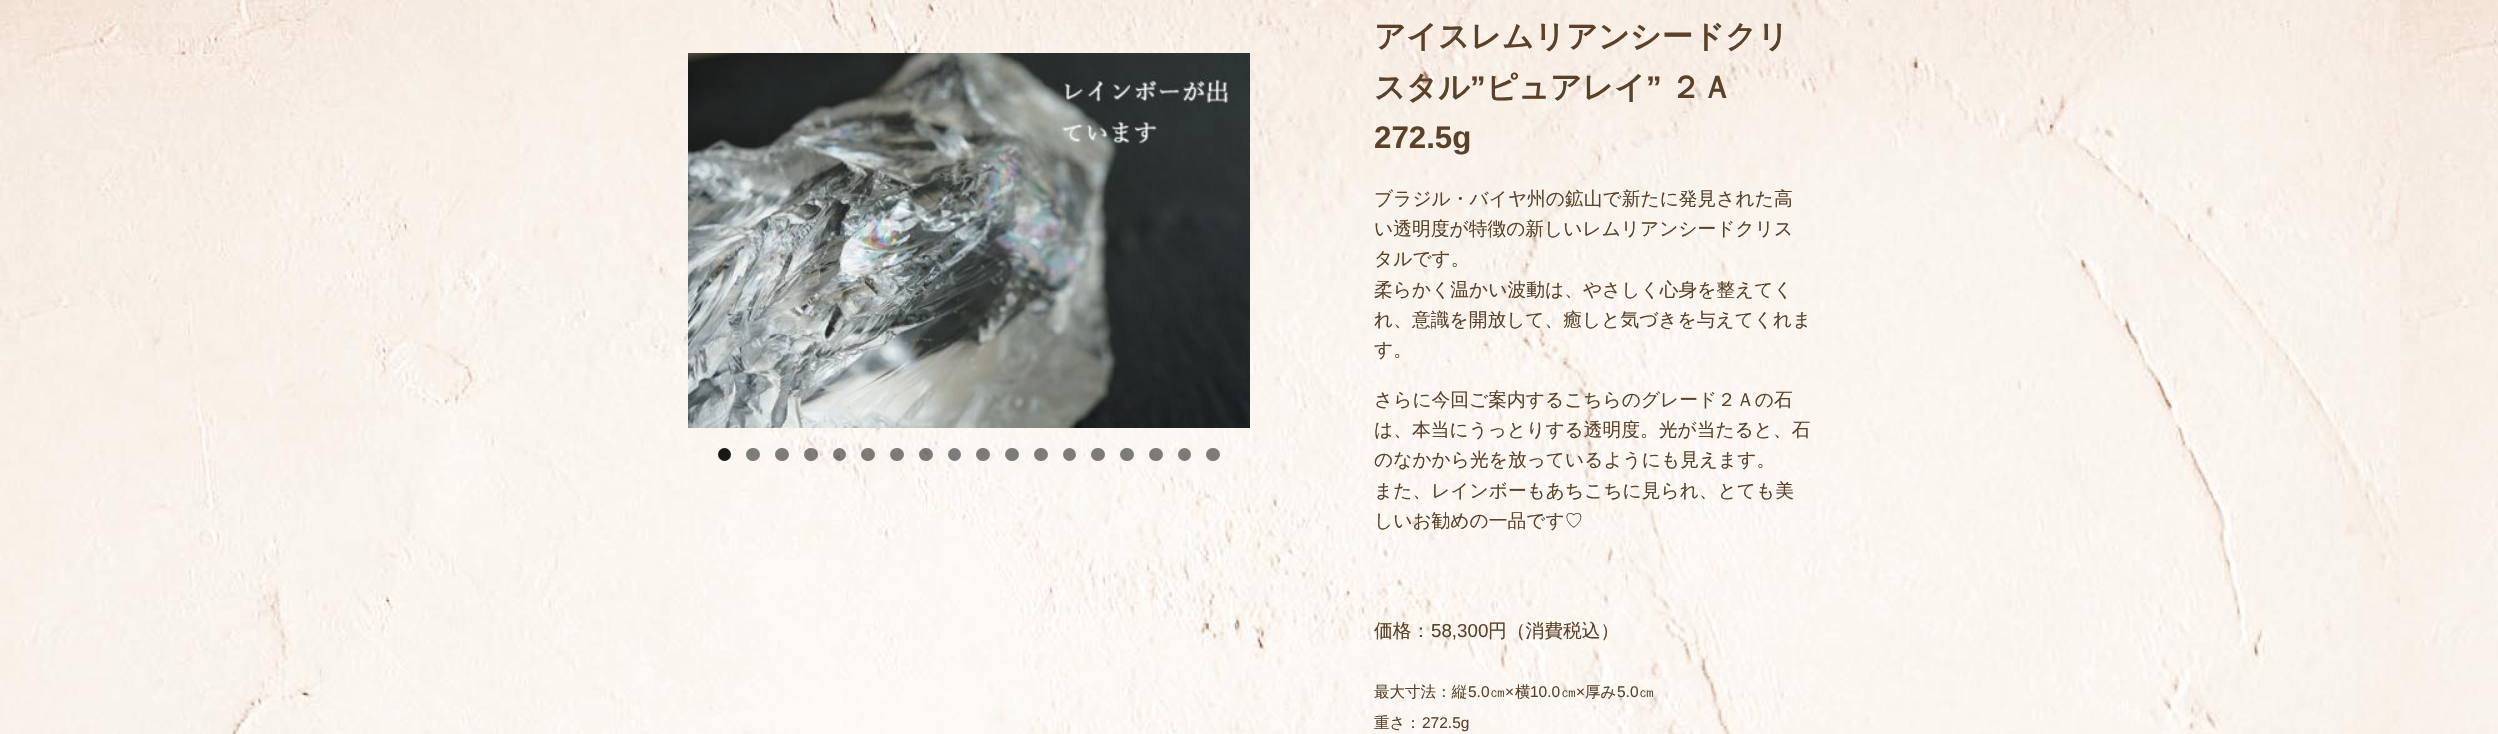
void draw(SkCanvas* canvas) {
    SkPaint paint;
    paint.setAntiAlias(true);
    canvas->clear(0xFFFFFFFF);
    canvas->drawImageRect(SkImages::DeferredFromEncodedData(SkData::MakeFromFileName("img1.png")), SkRect::MakeXYWH(0, 0, 2498, 734), SkSamplingOptions());
    canvas->drawImageRect(SkImages::DeferredFromEncodedData(SkData::MakeFromFileName("img2.png")), SkRect::MakeXYWH(688, 53, 562, 375), SkSamplingOptions());
    paint.setColor(0xFF191918);
    canvas->drawCircle(724.5f, 454.5f, 6.5f, paint);
    paint.setColor(0x80000000);
    canvas->drawRoundRect(SkRect::MakeXYWH(746, 448, 14, 13), 6.5f, 6.5f, paint);
    canvas->drawRoundRect(SkRect::MakeXYWH(775, 448, 14, 13), 6.5f, 6.5f, paint);
    canvas->drawRoundRect(SkRect::MakeXYWH(804, 448, 14, 13), 6.5f, 6.5f, paint);
    canvas->drawCircle(839.5f, 454.5f, 6.5f, paint);
    canvas->drawRoundRect(SkRect::MakeXYWH(861, 448, 14, 13), 6.5f, 6.5f, paint);
    canvas->drawRoundRect(SkRect::MakeXYWH(890, 448, 14, 13), 6.5f, 6.5f, paint);
    canvas->drawRoundRect(SkRect::MakeXYWH(919, 448, 14, 13), 6.5f, 6.5f, paint);
    canvas->drawCircle(954.5f, 454.5f, 6.5f, paint);
    canvas->drawRoundRect(SkRect::MakeXYWH(976, 448, 14, 13), 6.5f, 6.5f, paint);
    canvas->drawRoundRect(SkRect::MakeXYWH(1005, 448, 14, 13), 6.5f, 6.5f, paint);
    canvas->drawRoundRect(SkRect::MakeXYWH(1034, 448, 14, 13), 6.5f, 6.5f, paint);
    canvas->drawCircle(1069.5f, 454.5f, 6.5f, paint);
    canvas->drawRoundRect(SkRect::MakeXYWH(1091, 448, 14, 13), 6.5f, 6.5f, paint);
    canvas->drawRoundRect(SkRect::MakeXYWH(1120, 448, 14, 13), 6.5f, 6.5f, paint);
    canvas->drawRoundRect(SkRect::MakeXYWH(1149, 448, 14, 13), 6.5f, 6.5f, paint);
    canvas->drawCircle(1184.5f, 454.5f, 6.5f, paint);
    canvas->drawRoundRect(SkRect::MakeXYWH(1206, 448, 14, 13), 6.5f, 6.5f, paint);
    SkFont font1(fontMgr->matchFamilyStyle("WenQuanYi Zen Hei", SkFontStyle::Bold()), 31.25f);
    font1.setSubpixel(true);
    paint.setColor(0xFF5A4128);
    canvas->drawString("アイスレムリアンシードクリ", 1374, 47, font1, paint);
    canvas->drawString("スタル", 1374, 98, font1, paint);
    SkFont font2(fontMgr->matchFamilyStyle("Liberation Sans", SkFontStyle::Bold()), 31.25f);
    font2.setSubpixel(true);
    canvas->drawString("”", 1470, 98, font2, paint);
    canvas->drawString("ピュアレイ", 1486, 98, font1, paint);
    canvas->drawString("”", 1646, 98, font2, paint);
    canvas->drawString("２Ａ", 1670, 98, font1, paint);
    canvas->drawString("272.5g", 1374, 148, font2, paint);
    SkFont font3(fontMgr->matchFamilyStyle("WenQuanYi Zen Hei", SkFontStyle(500, SkFontStyle::kNormal_Width, SkFontStyle::kUpright_Slant)), 18.75f);
    font3.setSubpixel(true);
    canvas->drawString("ブラジル・バイヤ州の鉱山で新たに発見された高", 1374, 205, font3, paint);
    canvas->drawString("い透明度が特徴の新しいレムリアンシードクリス", 1374, 235, font3, paint);
    canvas->drawString("タルです。", 1374, 265, font3, paint);
    canvas->drawString("柔らかく温かい波動は、やさしく心身を整えてく", 1374, 296, font3, paint);
    canvas->drawString("れ、意識を開放して、癒しと気づきを与えてくれま", 1374, 326, font3, paint);
    canvas->drawString("す。", 1374, 356, font3, paint);
    canvas->drawString("さらに今回ご案内するこちらのグレード２Ａの石", 1374, 406, font3, paint);
    canvas->drawString("は、本当にうっとりする透明度。光が当たると、石", 1374, 436, font3, paint);
    canvas->drawString("のなかから光を放っているようにも見えます。", 1374, 466, font3, paint);
    canvas->drawString("また、レインボーもあちこちに見られ、とても美", 1374, 497, font3, paint);
    canvas->drawString("しいお勧めの一品です♡", 1374, 527, font3, paint);
    canvas->drawString("価格：", 1374, 637, font3, paint);
    SkFont font4(fontMgr->matchFamilyStyle("Liberation Sans", SkFontStyle::Normal()), 18.75f);
    font4.setSubpixel(true);
    canvas->drawString("58,300", 1431, 637, font4, paint);
    canvas->drawString("円（消費税込）", 1488, 637, font3, paint);
    SkFont font5(fontMgr->matchFamilyStyle("WenQuanYi Zen Hei", SkFontStyle(500, SkFontStyle::kNormal_Width, SkFontStyle::kUpright_Slant)), 15.5f);
    font5.setSubpixel(true);
    canvas->drawString("最大寸法：縦", 1374, 697, font5, paint);
    SkFont font6(fontMgr->matchFamilyStyle("Liberation Sans", SkFontStyle::Normal()), 15.5f);
    font6.setSubpixel(true);
    canvas->drawString("5.0", 1468, 697, font6, paint);
    canvas->drawString("㎝", 1490, 697, font5, paint);
    canvas->drawString("×", 1505, 697, font6, paint);
    canvas->drawString("横", 1515, 697, font5, paint);
    canvas->drawString("10.0", 1530, 697, font6, paint);
    canvas->drawString("㎝", 1561, 697, font5, paint);
    canvas->drawString("×", 1576, 697, font6, paint);
    canvas->drawString("厚み", 1585, 697, font5, paint);
    canvas->drawString("5.0", 1617, 697, font6, paint);
    canvas->drawString("㎝", 1639, 697, font5, paint);
    canvas->drawString("重さ：", 1374, 728, font5, paint);
    canvas->drawString("272.5g", 1422, 728, font6, paint);
}
